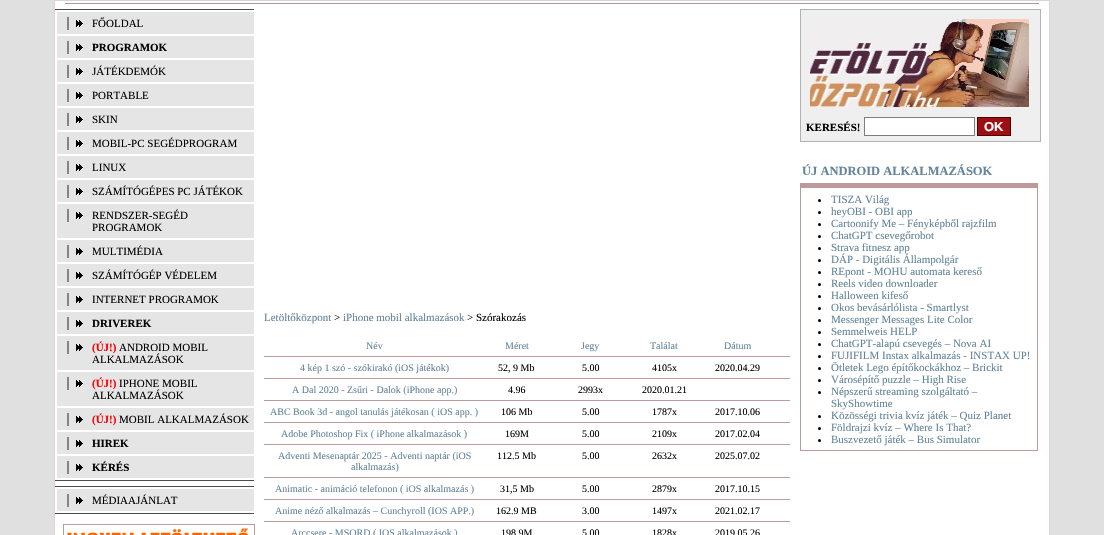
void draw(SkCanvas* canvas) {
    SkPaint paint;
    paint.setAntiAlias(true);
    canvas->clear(0xFFE0E0E0);
    paint.setColor(0xFFFFFFFF);
    canvas->drawRect(SkRect::MakeXYWH(54.5f, 0.5f, 995, 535), paint);
    paint.setStyle(SkPaint::kStroke_Style);
    paint.setStrokeWidth(1);
    paint.setColor(0xFFE0D2D1);
    canvas->drawRect(SkRect::MakeXYWH(54.5f, 0.5f, 995, 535), paint);
    paint.setStyle(SkPaint::kFill_Style);
    paint.setColor(0xFFA0A0A0);
    canvas->drawRect(SkRect::MakeXYWH(65, 3, 974, 1), paint);
    paint.setColor(0xFF4C4C4C);
    canvas->drawRect(SkRect::MakeXYWH(55, 9, 199, 1), paint);
    canvas->drawRect(SkRect::MakeXYWH(55, 480, 199, 1), paint);
    paint.setColor(0xFFE5E5E5);
    canvas->drawRect(SkRect::MakeXYWH(57, 12, 197, 22), paint);
    canvas->drawImageRect(SkImages::DeferredFromEncodedData(SkData::MakeFromFileName("img1.png")), SkRect::MakeXYWH(67, 17, 16, 13), SkSamplingOptions());
    SkFont font1(fontMgr->matchFamilyStyle("Liberation Serif", SkFontStyle::Normal()), 11);
    font1.setSubpixel(true);
    paint.setColor(0xFF000000);
    canvas->drawString("FŐOLDAL", 92, 27, font1, paint);
    paint.setColor(0xFFE5E5E5);
    canvas->drawRect(SkRect::MakeXYWH(57, 36, 197, 22), paint);
    canvas->drawImageRect(SkImages::DeferredFromEncodedData(SkData::MakeFromFileName("img1.png")), SkRect::MakeXYWH(67, 41, 16, 13), SkSamplingOptions());
    SkFont font2(fontMgr->matchFamilyStyle("Liberation Serif", SkFontStyle::Bold()), 11);
    font2.setSubpixel(true);
    paint.setColor(0xFF000000);
    canvas->drawString("PROGRAMOK", 92, 51, font2, paint);
    paint.setColor(0xFFE5E5E5);
    canvas->drawRect(SkRect::MakeXYWH(57, 60, 197, 22), paint);
    canvas->drawImageRect(SkImages::DeferredFromEncodedData(SkData::MakeFromFileName("img1.png")), SkRect::MakeXYWH(67, 65, 16, 13), SkSamplingOptions());
    paint.setColor(0xFF000000);
    canvas->drawString("JÁTÉKDEMÓK", 92, 75, font1, paint);
    paint.setColor(0xFFE5E5E5);
    canvas->drawRect(SkRect::MakeXYWH(57, 84, 197, 22), paint);
    canvas->drawImageRect(SkImages::DeferredFromEncodedData(SkData::MakeFromFileName("img1.png")), SkRect::MakeXYWH(67, 89, 16, 13), SkSamplingOptions());
    paint.setColor(0xFF000000);
    canvas->drawString("PORTABLE", 92, 99, font1, paint);
    paint.setColor(0xFFE5E5E5);
    canvas->drawRect(SkRect::MakeXYWH(57, 108, 197, 22), paint);
    canvas->drawImageRect(SkImages::DeferredFromEncodedData(SkData::MakeFromFileName("img1.png")), SkRect::MakeXYWH(67, 113, 16, 13), SkSamplingOptions());
    paint.setColor(0xFF000000);
    canvas->drawString("SKIN", 92, 123, font1, paint);
    paint.setColor(0xFFE5E5E5);
    canvas->drawRect(SkRect::MakeXYWH(57, 132, 197, 22), paint);
    canvas->drawImageRect(SkImages::DeferredFromEncodedData(SkData::MakeFromFileName("img1.png")), SkRect::MakeXYWH(67, 137, 16, 13), SkSamplingOptions());
    paint.setColor(0xFF000000);
    canvas->drawString("MOBIL-PC SEGÉDPROGRAM", 92, 147, font1, paint);
    paint.setColor(0xFFE5E5E5);
    canvas->drawRect(SkRect::MakeXYWH(57, 156, 197, 22), paint);
    canvas->drawImageRect(SkImages::DeferredFromEncodedData(SkData::MakeFromFileName("img1.png")), SkRect::MakeXYWH(67, 161, 16, 13), SkSamplingOptions());
    paint.setColor(0xFF000000);
    canvas->drawString("LINUX", 92, 171, font1, paint);
    paint.setColor(0xFFE5E5E5);
    canvas->drawRect(SkRect::MakeXYWH(57, 180, 197, 22), paint);
    canvas->drawImageRect(SkImages::DeferredFromEncodedData(SkData::MakeFromFileName("img1.png")), SkRect::MakeXYWH(67, 185, 16, 13), SkSamplingOptions());
    paint.setColor(0xFF000000);
    canvas->drawString("SZÁMÍTÓGÉPES PC JÁTÉKOK", 92, 195, font1, paint);
    paint.setColor(0xFFE5E5E5);
    canvas->drawRect(SkRect::MakeXYWH(57, 204, 197, 34), paint);
    canvas->drawImageRect(SkImages::DeferredFromEncodedData(SkData::MakeFromFileName("img1.png")), SkRect::MakeXYWH(67, 209, 16, 13), SkSamplingOptions());
    paint.setColor(0xFF000000);
    canvas->drawString("RENDSZER-SEGÉD", 92, 219, font1, paint);
    canvas->drawString("PROGRAMOK", 92, 231, font1, paint);
    paint.setColor(0xFFE5E5E5);
    canvas->drawRect(SkRect::MakeXYWH(57, 240, 197, 22), paint);
    canvas->drawImageRect(SkImages::DeferredFromEncodedData(SkData::MakeFromFileName("img1.png")), SkRect::MakeXYWH(67, 245, 16, 13), SkSamplingOptions());
    paint.setColor(0xFF000000);
    canvas->drawString("MULTIMÉDIA", 92, 255, font1, paint);
    paint.setColor(0xFFE5E5E5);
    canvas->drawRect(SkRect::MakeXYWH(57, 264, 197, 22), paint);
    canvas->drawImageRect(SkImages::DeferredFromEncodedData(SkData::MakeFromFileName("img1.png")), SkRect::MakeXYWH(67, 269, 16, 13), SkSamplingOptions());
    paint.setColor(0xFF000000);
    canvas->drawString("SZÁMÍTÓGÉP VÉDELEM", 92, 279, font1, paint);
    paint.setColor(0xFFE5E5E5);
    canvas->drawRect(SkRect::MakeXYWH(57, 288, 197, 22), paint);
    canvas->drawImageRect(SkImages::DeferredFromEncodedData(SkData::MakeFromFileName("img1.png")), SkRect::MakeXYWH(67, 293, 16, 13), SkSamplingOptions());
    paint.setColor(0xFF000000);
    canvas->drawString("INTERNET PROGRAMOK", 92, 303, font1, paint);
    paint.setColor(0xFFE5E5E5);
    canvas->drawRect(SkRect::MakeXYWH(57, 312, 197, 22), paint);
    canvas->drawImageRect(SkImages::DeferredFromEncodedData(SkData::MakeFromFileName("img1.png")), SkRect::MakeXYWH(67, 317, 16, 13), SkSamplingOptions());
    paint.setColor(0xFF000000);
    canvas->drawString("DRIVEREK", 92, 327, font2, paint);
    paint.setColor(0xFFE5E5E5);
    canvas->drawRect(SkRect::MakeXYWH(57, 336, 197, 34), paint);
    canvas->drawImageRect(SkImages::DeferredFromEncodedData(SkData::MakeFromFileName("img1.png")), SkRect::MakeXYWH(67, 341, 16, 13), SkSamplingOptions());
    paint.setColor(0xFFFF0000);
    canvas->drawString("(ÚJ!)", 92, 351, font2, paint);
    paint.setColor(0xFF000000);
    canvas->drawString("ANDROID MOBIL", 119, 351, font1, paint);
    canvas->drawString("ALKALMAZÁSOK", 92, 363, font1, paint);
    paint.setColor(0xFFE5E5E5);
    canvas->drawRect(SkRect::MakeXYWH(57, 372, 197, 34), paint);
    canvas->drawImageRect(SkImages::DeferredFromEncodedData(SkData::MakeFromFileName("img1.png")), SkRect::MakeXYWH(67, 377, 16, 13), SkSamplingOptions());
    paint.setColor(0xFFFF0000);
    canvas->drawString("(ÚJ!)", 92, 387, font2, paint);
    paint.setColor(0xFF000000);
    canvas->drawString("IPHONE MOBIL", 119, 387, font1, paint);
    canvas->drawString("ALKALMAZÁSOK", 92, 399, font1, paint);
    paint.setColor(0xFFE5E5E5);
    canvas->drawRect(SkRect::MakeXYWH(57, 408, 197, 22), paint);
    canvas->drawImageRect(SkImages::DeferredFromEncodedData(SkData::MakeFromFileName("img1.png")), SkRect::MakeXYWH(67, 413, 16, 13), SkSamplingOptions());
    paint.setColor(0xFFFF0000);
    canvas->drawString("(ÚJ!)", 92, 423, font2, paint);
    paint.setColor(0xFF000000);
    canvas->drawString("MOBIL ALKALMAZÁSOK", 119, 423, font1, paint);
    paint.setColor(0xFFE5E5E5);
    canvas->drawRect(SkRect::MakeXYWH(57, 432, 197, 22), paint);
    canvas->drawImageRect(SkImages::DeferredFromEncodedData(SkData::MakeFromFileName("img1.png")), SkRect::MakeXYWH(67, 437, 16, 13), SkSamplingOptions());
    paint.setColor(0xFF000000);
    canvas->drawString("HIREK", 92, 447, font2, paint);
    paint.setColor(0xFFE5E5E5);
    canvas->drawRect(SkRect::MakeXYWH(57, 456, 197, 22), paint);
    canvas->drawImageRect(SkImages::DeferredFromEncodedData(SkData::MakeFromFileName("img1.png")), SkRect::MakeXYWH(67, 461, 16, 13), SkSamplingOptions());
    paint.setColor(0xFF000000);
    canvas->drawString("KÉRÉS", 92, 471, font2, paint);
    paint.setColor(0xFF4C4C4C);
    canvas->drawRect(SkRect::MakeXYWH(55, 486, 199, 1), paint);
    canvas->drawRect(SkRect::MakeXYWH(55, 513, 199, 1), paint);
    paint.setColor(0xFFE5E5E5);
    canvas->drawRect(SkRect::MakeXYWH(57, 489, 197, 22), paint);
    canvas->drawImageRect(SkImages::DeferredFromEncodedData(SkData::MakeFromFileName("img1.png")), SkRect::MakeXYWH(67, 494, 16, 13), SkSamplingOptions());
    paint.setColor(0xFF000000);
    canvas->drawString("MÉDIAAJÁNLAT", 92, 504, font1, paint);
    paint.setStyle(SkPaint::kStroke_Style);
    paint.setColor(0xFFBF9899);
    canvas->drawRect(SkRect::MakeXYWH(63.5f, 524.5f, 191, 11), paint);
    canvas->drawImageRect(SkImages::DeferredFromEncodedData(SkData::MakeFromFileName("img2.png")), SkRect::MakeXYWH(64, 525, 190, 10), SkSamplingOptions());
    paint.setStyle(SkPaint::kFill_Style);
    paint.setColor(0xFF648499);
    canvas->drawString("Letöltőközpont", 264, 321, font1, paint);
    paint.setColor(0xFF000000);
    canvas->drawString(">", 334, 321, font1, paint);
    paint.setColor(0xFF648499);
    canvas->drawString("iPhone mobil alkalmazások", 343, 321, font1, paint);
    paint.setColor(0xFF000000);
    canvas->drawString("> Szórakozás", 467, 321, font1, paint);
    paint.setColor(0xFFBF9899);
    canvas->drawRect(SkRect::MakeXYWH(264, 356, 526, 1), paint);
    SkFont font3(fontMgr->matchFamilyStyle("Liberation Serif", SkFontStyle::Normal()), 10);
    font3.setSubpixel(true);
    paint.setColor(0xFF648499);
    canvas->drawString("Név", 366, 349, font3, paint);
    canvas->drawString("Méret", 505, 349, font3, paint);
    canvas->drawString("Jegy", 581, 349, font3, paint);
    canvas->drawString("Találat", 650, 349, font3, paint);
    canvas->drawString("Dátum", 724, 349, font3, paint);
    paint.setColor(0xFFBF9899);
    canvas->drawRect(SkRect::MakeXYWH(264, 378, 526, 1), paint);
    paint.setColor(0xFF648499);
    canvas->drawString("4 kép 1 szó - szókirakó (iOS játékok)", 300, 371, font3, paint);
    paint.setColor(0xFF000000);
    canvas->drawString("52, 9 Mb", 498, 371, font3, paint);
    canvas->drawString("5.00", 582, 371, font3, paint);
    canvas->drawString("4105x", 652, 371, font3, paint);
    canvas->drawString("2020.04.29", 715, 371, font3, paint);
    paint.setColor(0xFFBF9899);
    canvas->drawRect(SkRect::MakeXYWH(264, 400, 526, 1), paint);
    paint.setColor(0xFF648499);
    canvas->drawString("A Dal 2020 - Zsűri - Dalok (iPhone app.)", 292, 393, font3, paint);
    paint.setColor(0xFF000000);
    canvas->drawString("4.96", 508, 393, font3, paint);
    canvas->drawString("2993x", 578, 393, font3, paint);
    canvas->drawString("2020.01.21", 642, 393, font3, paint);
    paint.setColor(0xFFBF9899);
    canvas->drawRect(SkRect::MakeXYWH(264, 422, 526, 1), paint);
    paint.setColor(0xFF648499);
    canvas->drawString("ABC Book 3d - angol tanulás játékosan ( iOS app. )", 270, 415, font3, paint);
    paint.setColor(0xFF000000);
    canvas->drawString("106 Mb", 501, 415, font3, paint);
    canvas->drawString("5.00", 582, 415, font3, paint);
    canvas->drawString("1787x", 652, 415, font3, paint);
    canvas->drawString("2017.10.06", 715, 415, font3, paint);
    paint.setColor(0xFFBF9899);
    canvas->drawRect(SkRect::MakeXYWH(264, 444, 526, 1), paint);
    paint.setColor(0xFF648499);
    canvas->drawString("Adobe Photoshop Fix ( iPhone alkalmazások )", 281, 437, font3, paint);
    paint.setColor(0xFF000000);
    canvas->drawString("169M", 505, 437, font3, paint);
    canvas->drawString("5.00", 582, 437, font3, paint);
    canvas->drawString("2109x", 652, 437, font3, paint);
    canvas->drawString("2017.02.04", 715, 437, font3, paint);
    paint.setColor(0xFFBF9899);
    canvas->drawRect(SkRect::MakeXYWH(264, 477, 526, 1), paint);
    paint.setColor(0xFF648499);
    canvas->drawString("Adventi Mesenaptár 2025 - Adventi naptár (iOS", 278, 459, font3, paint);
    canvas->drawString("alkalmazás)", 351, 470, font3, paint);
    paint.setColor(0xFF000000);
    canvas->drawString("112.5 Mb", 497, 459, font3, paint);
    canvas->drawString("5.00", 582, 459, font3, paint);
    canvas->drawString("2632x", 652, 459, font3, paint);
    canvas->drawString("2025.07.02", 715, 459, font3, paint);
    paint.setColor(0xFFBF9899);
    canvas->drawRect(SkRect::MakeXYWH(264, 499, 526, 1), paint);
    paint.setColor(0xFF648499);
    canvas->drawString("Animatic - animáció telefonon ( iOS alkalmazás )", 275, 492, font3, paint);
    paint.setColor(0xFF000000);
    canvas->drawString("31,5 Mb", 500, 492, font3, paint);
    canvas->drawString("5.00", 582, 492, font3, paint);
    canvas->drawString("2879x", 652, 492, font3, paint);
    canvas->drawString("2017.10.15", 715, 492, font3, paint);
    paint.setColor(0xFFBF9899);
    canvas->drawRect(SkRect::MakeXYWH(264, 521, 526, 1), paint);
    paint.setColor(0xFF648499);
    canvas->drawString("Anime néző alkalmazás – Cunchyroll (IOS APP.)", 275, 514, font3, paint);
    paint.setColor(0xFF000000);
    canvas->drawString("162.9 MB", 496, 514, font3, paint);
    canvas->drawString("3.00", 582, 514, font3, paint);
    canvas->drawString("1497x", 652, 514, font3, paint);
    canvas->drawString("2021.02.17", 715, 514, font3, paint);
    paint.setColor(0xFF648499);
    canvas->drawString("Arccsere - MSQRD ( IOS alkalmazások )", 291, 536, font3, paint);
    paint.setColor(0xFF000000);
    canvas->drawString("198,9M", 501, 536, font3, paint);
    canvas->drawString("5.00", 582, 536, font3, paint);
    canvas->drawString("1828x", 652, 536, font3, paint);
    canvas->drawString("2019.05.26", 715, 536, font3, paint);
    paint.setColor(0xFFEFEFEF);
    canvas->drawRect(SkRect::MakeXYWH(800.5f, 9.5f, 240, 132), paint);
    paint.setStyle(SkPaint::kStroke_Style);
    paint.setColor(0xFFB2B2B2);
    canvas->drawRect(SkRect::MakeXYWH(800.5f, 9.5f, 240, 132), paint);
    canvas->drawImageRect(SkImages::DeferredFromEncodedData(SkData::MakeFromFileName("img3.png")), SkRect::MakeXYWH(810, 19, 219, 88), SkSamplingOptions());
    paint.setStyle(SkPaint::kFill_Style);
    paint.setColor(0xFF000000);
    canvas->drawString("KERESÉS!", 806, 131, font2, paint);
    paint.setColor(0xFFFFFFFF);
    canvas->drawRect(SkRect::MakeXYWH(864.5f, 117.5f, 110, 18), paint);
    paint.setStyle(SkPaint::kStroke_Style);
    paint.setColor(0xFF7E7E7E);
    canvas->drawRect(SkRect::MakeXYWH(864.5f, 117.5f, 110, 18), paint);
    paint.setStyle(SkPaint::kFill_Style);
    paint.setColor(0xFF9C1013);
    canvas->drawRect(SkRect::MakeXYWH(977.5f, 117.5f, 33, 18), paint);
    paint.setStyle(SkPaint::kStroke_Style);
    paint.setColor(0xFF4D0002);
    canvas->drawRect(SkRect::MakeXYWH(977.5f, 117.5f, 33, 18), paint);
    SkFont font4(fontMgr->matchFamilyStyle("Liberation Sans", SkFontStyle::Bold()), 13);
    font4.setSubpixel(true);
    paint.setStyle(SkPaint::kFill_Style);
    paint.setColor(0xFFFFFFFF);
    canvas->drawString("OK", 984, 131, font4, paint);
    paint.setColor(0xFFBF9899);
    canvas->drawRect(SkRect::MakeXYWH(800, 183, 238, 4), paint);
    SkFont font5(fontMgr->matchFamilyStyle("Liberation Serif", SkFontStyle::Bold()), 12.5f);
    font5.setSubpixel(true);
    paint.setColor(0xFF648499);
    canvas->drawString("ÚJ ANDROID ALKALMAZÁSOK", 802, 175, font5, paint);
    paint.setStyle(SkPaint::kStroke_Style);
    paint.setColor(0xFFBF9899);
    canvas->drawRect(SkRect::MakeXYWH(800.5f, 187.5f, 237, 263), paint);
    paint.setStyle(SkPaint::kFill_Style);
    paint.setColor(0xFF000000);
    canvas->drawCircle(819.5f, 200.5f, 1.5f, paint);
    paint.setColor(0xFF648499);
    canvas->drawString("TISZA Világ", 831, 203, font1, paint);
    paint.setColor(0xFF000000);
    canvas->drawCircle(819.5f, 212.5f, 1.5f, paint);
    paint.setColor(0xFF648499);
    canvas->drawString("heyOBI - OBI app", 831, 215, font1, paint);
    paint.setColor(0xFF000000);
    canvas->drawCircle(819.5f, 224.5f, 1.5f, paint);
    paint.setColor(0xFF648499);
    canvas->drawString("Cartoonify Me – Fényképből rajzfilm", 831, 227, font1, paint);
    paint.setColor(0xFF000000);
    canvas->drawCircle(819.5f, 236.5f, 1.5f, paint);
    paint.setColor(0xFF648499);
    canvas->drawString("ChatGPT csevegőrobot", 831, 239, font1, paint);
    paint.setColor(0xFF000000);
    canvas->drawCircle(819.5f, 248.5f, 1.5f, paint);
    paint.setColor(0xFF648499);
    canvas->drawString("Strava fitnesz app", 831, 251, font1, paint);
    paint.setColor(0xFF000000);
    canvas->drawCircle(819.5f, 260.5f, 1.5f, paint);
    paint.setColor(0xFF648499);
    canvas->drawString("DÁP - Digitális Állampolgár", 831, 263, font1, paint);
    paint.setColor(0xFF000000);
    canvas->drawCircle(819.5f, 272.5f, 1.5f, paint);
    paint.setColor(0xFF648499);
    canvas->drawString("REpont - MOHU automata kereső", 831, 275, font1, paint);
    paint.setColor(0xFF000000);
    canvas->drawCircle(819.5f, 284.5f, 1.5f, paint);
    paint.setColor(0xFF648499);
    canvas->drawString("Reels video downloader", 831, 287, font1, paint);
    paint.setColor(0xFF000000);
    canvas->drawCircle(819.5f, 296.5f, 1.5f, paint);
    paint.setColor(0xFF648499);
    canvas->drawString("Halloween kifeső", 831, 299, font1, paint);
    paint.setColor(0xFF000000);
    canvas->drawCircle(819.5f, 308.5f, 1.5f, paint);
    paint.setColor(0xFF648499);
    canvas->drawString("Okos bevásárlólista - Smartlyst", 831, 311, font1, paint);
    paint.setColor(0xFF000000);
    canvas->drawCircle(819.5f, 320.5f, 1.5f, paint);
    paint.setColor(0xFF648499);
    canvas->drawString("Messenger Messages Lite Color", 831, 323, font1, paint);
    paint.setColor(0xFF000000);
    canvas->drawCircle(819.5f, 332.5f, 1.5f, paint);
    paint.setColor(0xFF648499);
    canvas->drawString("Semmelweis HELP", 831, 335, font1, paint);
    paint.setColor(0xFF000000);
    canvas->drawCircle(819.5f, 344.5f, 1.5f, paint);
    paint.setColor(0xFF648499);
    canvas->drawString("ChatGPT-alapú csevegés – Nova AI", 831, 347, font1, paint);
    paint.setColor(0xFF000000);
    canvas->drawCircle(819.5f, 356.5f, 1.5f, paint);
    paint.setColor(0xFF648499);
    canvas->drawString("FUJIFILM Instax alkalmazás - INSTAX UP!", 831, 359, font1, paint);
    paint.setColor(0xFF000000);
    canvas->drawCircle(819.5f, 368.5f, 1.5f, paint);
    paint.setColor(0xFF648499);
    canvas->drawString("Ötletek Lego építőkockákhoz – Brickit", 831, 371, font1, paint);
    paint.setColor(0xFF000000);
    canvas->drawCircle(819.5f, 380.5f, 1.5f, paint);
    paint.setColor(0xFF648499);
    canvas->drawString("Városépítő puzzle – High Rise", 831, 383, font1, paint);
    paint.setColor(0xFF000000);
    canvas->drawCircle(819.5f, 392.5f, 1.5f, paint);
    paint.setColor(0xFF648499);
    canvas->drawString("Népszerű streaming szolgáltató –", 831, 395, font1, paint);
    canvas->drawString("SkyShowtime", 831, 407, font1, paint);
    paint.setColor(0xFF000000);
    canvas->drawCircle(819.5f, 416.5f, 1.5f, paint);
    paint.setColor(0xFF648499);
    canvas->drawString("Közösségi trivia kvíz játék – Quiz Planet", 831, 419, font1, paint);
    paint.setColor(0xFF000000);
    canvas->drawCircle(819.5f, 428.5f, 1.5f, paint);
    paint.setColor(0xFF648499);
    canvas->drawString("Földrajzi kvíz – Where Is That?", 831, 431, font1, paint);
    paint.setColor(0xFF000000);
    canvas->drawCircle(819.5f, 440.5f, 1.5f, paint);
    paint.setColor(0xFF648499);
    canvas->drawString("Buszvezető játék – Bus Simulator", 831, 443, font1, paint);
}
